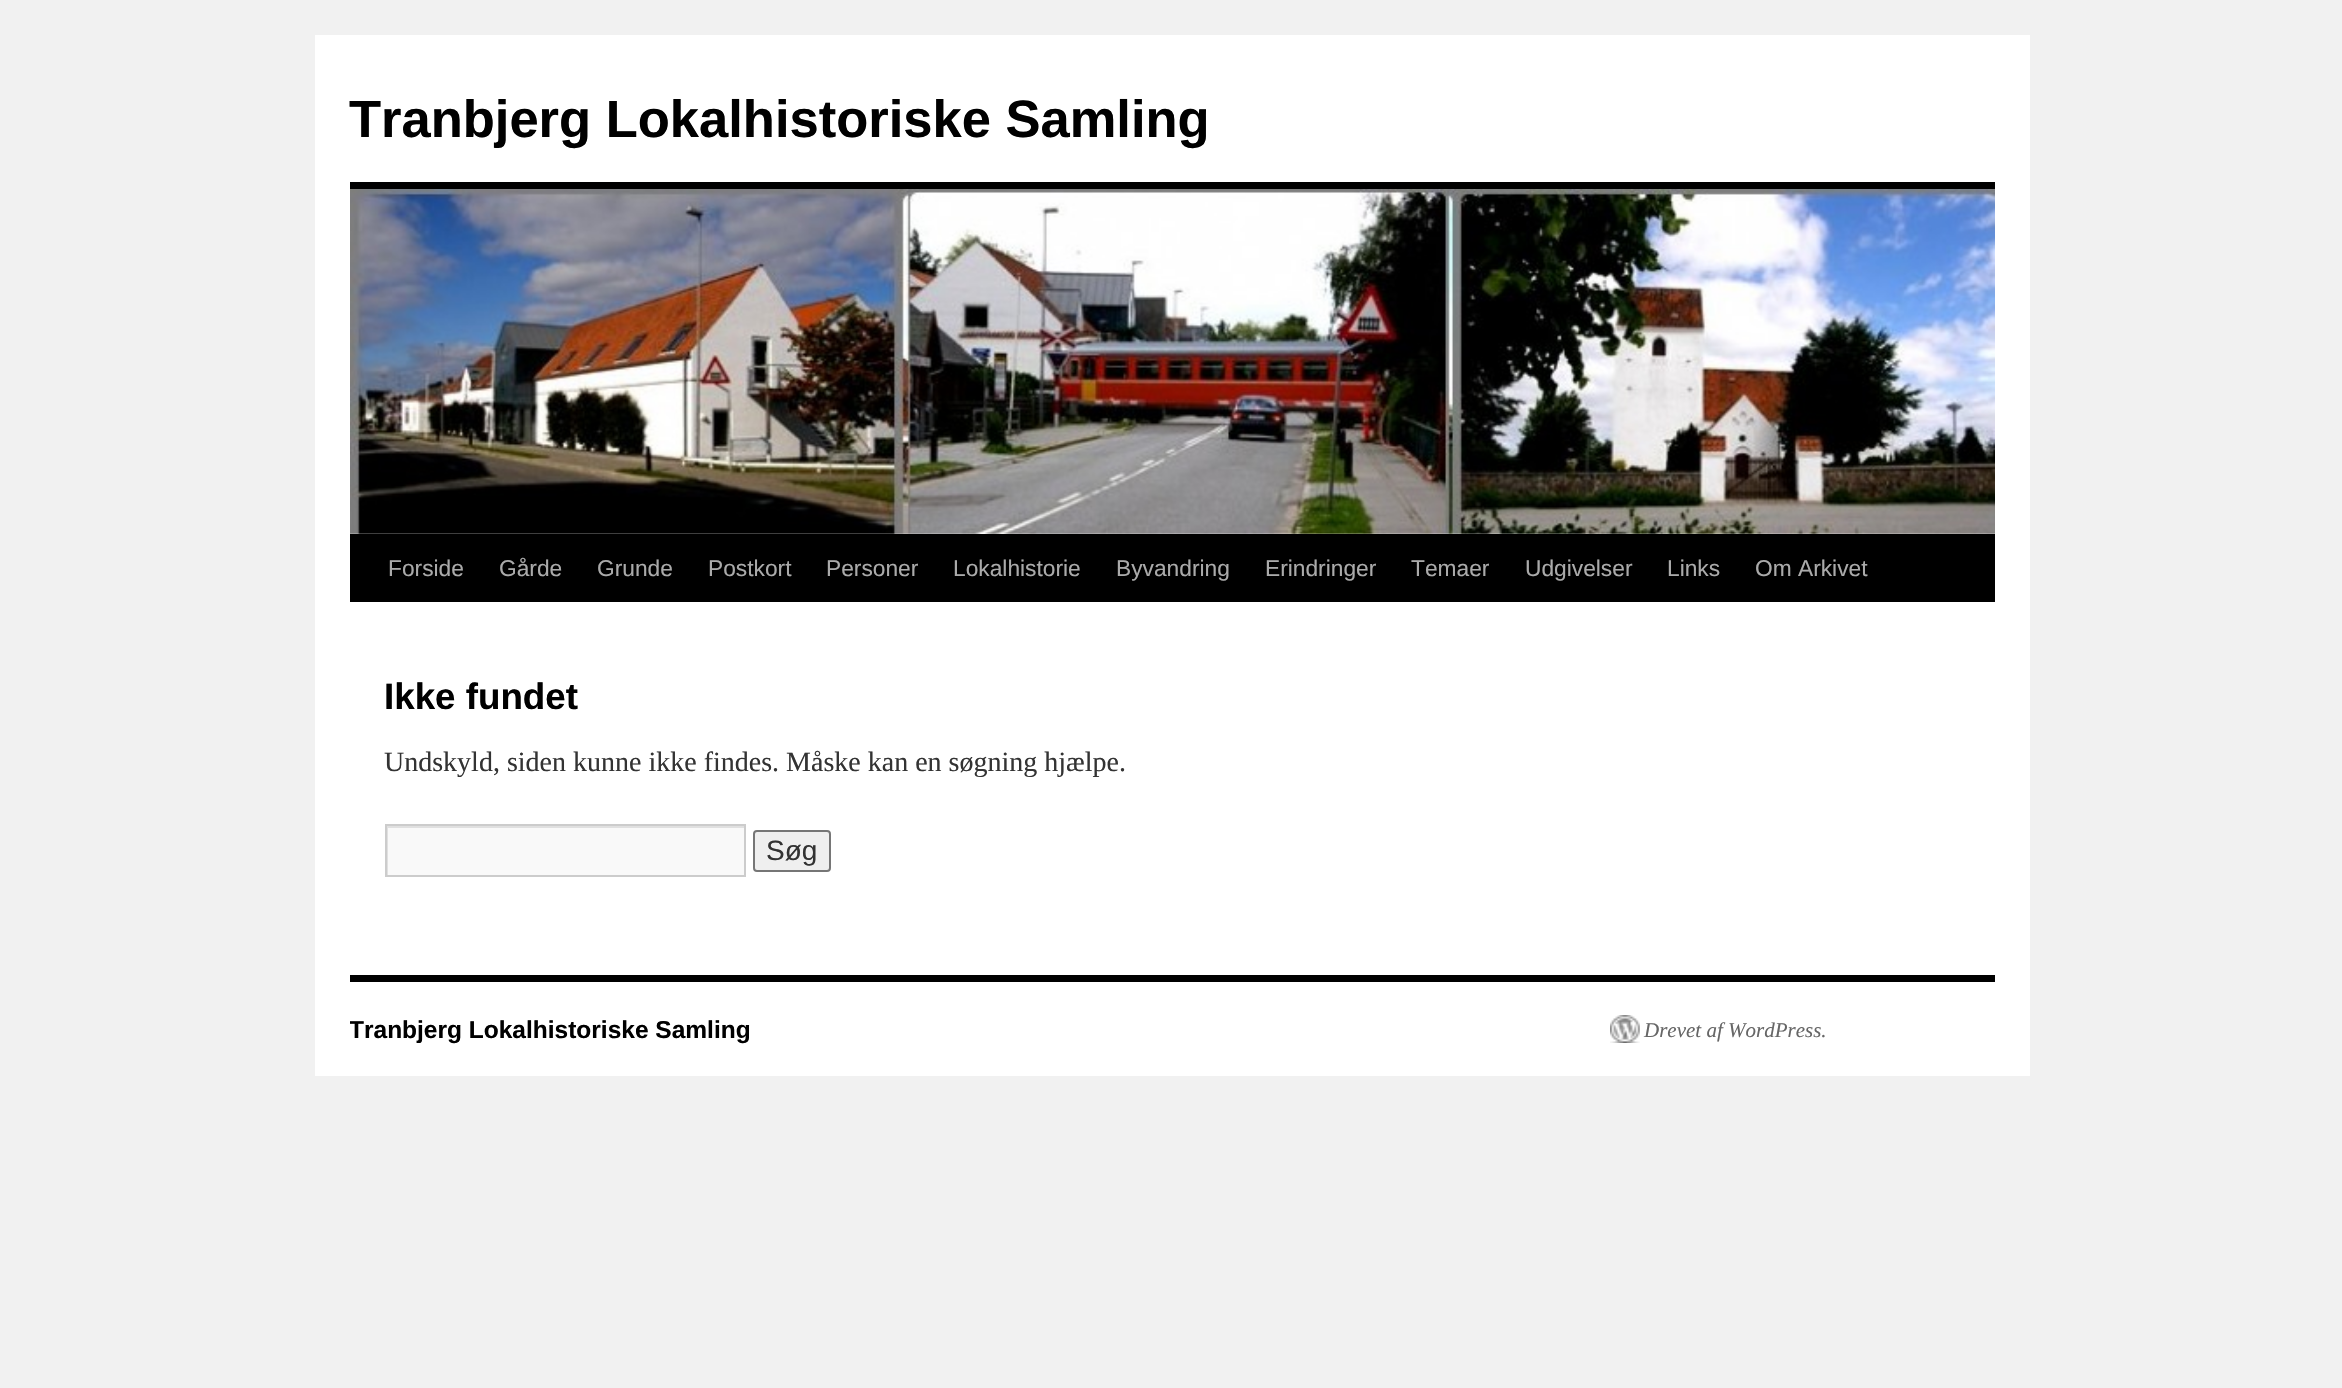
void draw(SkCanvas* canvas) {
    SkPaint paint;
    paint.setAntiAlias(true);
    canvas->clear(0xFFF1F1F1);
    paint.setColor(0xFFFFFFFF);
    canvas->drawRect(SkRect::MakeXYWH(315, 35, 1715, 1041), paint);
    SkFont font1(fontMgr->matchFamilyStyle("Liberation Sans", SkFontStyle::Bold()), 52.5f);
    font1.setSubpixel(true);
    paint.setColor(0xFF000000);
    canvas->drawString("Tranbjerg Lokalhistoriske Samling", 349, 137, font1, paint);
    canvas->drawRect(SkRect::MakeXYWH(350, 182, 1645, 7), paint);
    canvas->drawRect(SkRect::MakeXYWH(350, 534, 1645, 68), paint);
    canvas->drawImageRect(SkImages::DeferredFromEncodedData(SkData::MakeFromFileName("img1.png")), SkRect::MakeXYWH(350, 189, 1645, 345), SkSamplingOptions());
    SkFont font2(fontMgr->matchFamilyStyle("Liberation Sans", SkFontStyle::Normal()), 22.75f);
    font2.setSubpixel(true);
    paint.setColor(0xFFAAAAAA);
    canvas->drawString("Forside", 388, 576, font2, paint);
    canvas->drawString("Gårde", 499, 576, font2, paint);
    canvas->drawString("Grunde", 597, 576, font2, paint);
    canvas->drawString("Postkort", 708, 576, font2, paint);
    canvas->drawString("Personer", 826, 576, font2, paint);
    canvas->drawString("Lokalhistorie", 953, 576, font2, paint);
    canvas->drawString("Byvandring", 1116, 576, font2, paint);
    canvas->drawString("Erindringer", 1265, 576, font2, paint);
    canvas->drawString("Temaer", 1411, 576, font2, paint);
    canvas->drawString("Udgivelser", 1525, 576, font2, paint);
    canvas->drawString("Links", 1667, 576, font2, paint);
    canvas->drawString("Om Arkivet", 1755, 576, font2, paint);
    SkFont font3(fontMgr->matchFamilyStyle("Liberation Sans", SkFontStyle::Bold()), 36.75f);
    font3.setSubpixel(true);
    paint.setColor(0xFF000000);
    canvas->drawString("Ikke fundet", 384, 709, font3, paint);
    SkFont font4(fontMgr->matchFamilyStyle("Liberation Serif", SkFontStyle::Normal()), 28);
    font4.setSubpixel(true);
    paint.setColor(0xFF333333);
    canvas->drawString("Undskyld, siden kunne ikke findes. Måske kan en søgning hjælpe.", 384, 771, font4, paint);
    paint.setColor(0xFFF9F9F9);
    canvas->drawRect(SkRect::MakeXYWH(388, 828, 356, 47), paint);
    canvas->save();
    canvas->clipRect(SkRect::MakeXYWH(387, 826, 357, 49));
    paint.setColor(0xFFE0E0E0);
    canvas->drawPath(SkPathBuilder(SkPathFillType::kEvenOdd).moveTo(214, 653).lineTo(917, 653).lineTo(917, 1048).lineTo(214, 1048).close().moveTo(388, 828).lineTo(746, 828).lineTo(746, 877).lineTo(388, 877).close().detach(), paint);
    canvas->restore();
    paint.setStyle(SkPaint::kStroke_Style);
    paint.setStrokeWidth(2);
    paint.setColor(0xFFCCCCCC);
    canvas->drawRect(SkRect::MakeXYWH(386, 825, 359, 51), paint);
    paint.setStyle(SkPaint::kFill_Style);
    paint.setColor(0xFFEFEFEF);
    canvas->drawRoundRect(SkRect::MakeXYWH(754, 831, 76, 40), 3, 3, paint);
    paint.setStyle(SkPaint::kStroke_Style);
    paint.setColor(0xFF767676);
    canvas->drawRoundRect(SkRect::MakeXYWH(754, 831, 76, 40), 3, 3, paint);
    SkFont font5(fontMgr->matchFamilyStyle("Liberation Sans", SkFontStyle::Normal()), 28);
    font5.setSubpixel(true);
    paint.setStyle(SkPaint::kFill_Style);
    paint.setColor(0xFF333333);
    canvas->drawString("Søg", 766, 860, font5, paint);
    paint.setColor(0xFF000000);
    canvas->drawRect(SkRect::MakeXYWH(350, 975, 1645, 7), paint);
    canvas->save();
    canvas->clipRect(SkRect::MakeXYWH(350, 982, 1645, 94));
    SkFont font6(fontMgr->matchFamilyStyle("Liberation Sans", SkFontStyle::Bold()), 24.5f);
    font6.setSubpixel(true);
    canvas->drawString("Tranbjerg Lokalhistoriske Samling", 349, 1038, font6, paint);
    canvas->restore();
    canvas->drawImageRect(SkImages::DeferredFromEncodedData(SkData::MakeFromFileName("img2.png")), SkRect::MakeXYWH(1610, 1015, 30, 28), SkSamplingOptions());
    SkFont font7(fontMgr->matchFamilyStyle("Liberation Serif", SkFontStyle::Italic()), 21);
    font7.setSubpixel(true);
    paint.setColor(0xFF666666);
    canvas->drawString("Drevet af WordPress.", 1644, 1037, font7, paint);
}
